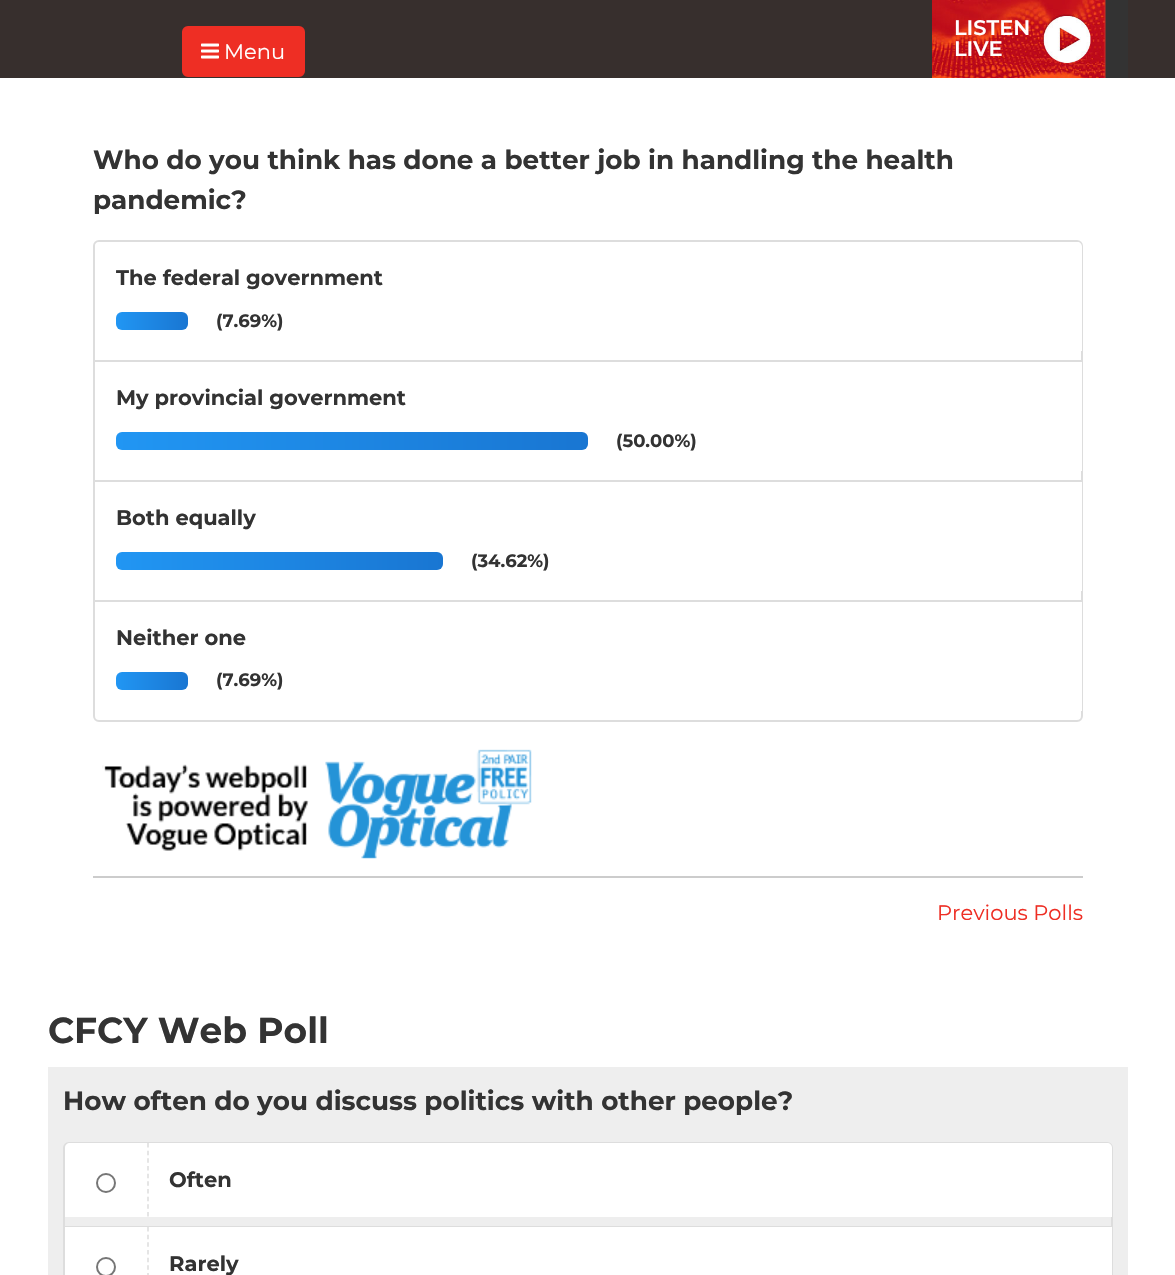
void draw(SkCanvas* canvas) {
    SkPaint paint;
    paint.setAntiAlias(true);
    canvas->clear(0xFFFFFFFF);
    paint.setColor(0xFF372F2D);
    canvas->drawRect(SkRect::MakeXYWH(0, 0, 1175, 78), paint);
    paint.setColor(0xFFEE2E24);
    canvas->drawRoundRect(SkRect::MakeXYWH(183, 27, 121, 49), 5, 5, paint);
    paint.setStyle(SkPaint::kStroke_Style);
    paint.setStrokeWidth(2);
    canvas->drawRoundRect(SkRect::MakeXYWH(183, 27, 121, 49), 5, 5, paint);
    canvas->drawImageRect(SkImages::DeferredFromEncodedData(SkData::MakeFromFileName("img1.png")), SkRect::MakeXYWH(201, 43, 18, 16), SkSamplingOptions());
    SkFont font1(fontMgr->matchFamilyStyle("Montserrat", SkFontStyle::Normal()), 21);
    font1.setSubpixel(true);
    paint.setStyle(SkPaint::kFill_Style);
    paint.setColor(0xFFFFFFFF);
    canvas->drawString("Menu", 224, 59, font1, paint);
    paint.setColor(0xFF333333);
    canvas->drawRect(SkRect::MakeXYWH(1105, 0, 23, 78), paint);
    canvas->drawImageRect(SkImages::DeferredFromEncodedData(SkData::MakeFromFileName("img2.png")), SkRect::MakeXYWH(932, 0, 174, 78), SkSamplingOptions());
    SkFont font2(fontMgr->matchFamilyStyle("Montserrat", SkFontStyle(600, SkFontStyle::kNormal_Width, SkFontStyle::kUpright_Slant)), 21);
    font2.setSubpixel(true);
    paint.setColor(0xFFFFFFFF);
    canvas->drawString("LISTEN", 954, 35, font2, paint);
    canvas->drawString("LIVE", 954, 56, font2, paint);
    SkFont font3(fontMgr->matchFamilyStyle("Montserrat", SkFontStyle::Bold()), 26.25f);
    font3.setSubpixel(true);
    paint.setColor(0xFF333333);
    canvas->drawString("Who do you think has done a better job in handling the health", 93, 169, font3, paint);
    canvas->drawString("pandemic?", 93, 209, font3, paint);
    paint.setStyle(SkPaint::kStroke_Style);
    paint.setColor(0xFFDDDDDD);
    canvas->drawRoundRect(SkRect::MakeXYWH(94, 241, 988, 480), 5, 5, paint);
    paint.setStyle(SkPaint::kFill_Style);
    paint.setColor(0xFFFFFFFF);
    canvas->drawPath(SkPathBuilder().moveTo(100, 242).lineTo(1077, 242).cubicTo(1080, 242, 1082, 244, 1082, 247).lineTo(1082, 351).lineTo(95, 351).lineTo(95, 247).cubicTo(95, 244, 97, 242, 100, 242).close().detach(), paint);
    SkFont font4(fontMgr->matchFamilyStyle("Montserrat", SkFontStyle::Bold()), 21);
    font4.setSubpixel(true);
    paint.setColor(0xFF333333);
    canvas->drawString("The federal government", 116, 285, font4, paint);
    {
        const SkColor colors[] = {0xFF2196F3, 0xFF1976D2};
        const float stops[] = {0, 1};
        const SkPoint ends[] = {{116, 321}, {188, 321}};
        paint.setShader(SkGradientShader::MakeLinear(ends, colors, stops, 2, SkTileMode::kClamp));
        paint.setAlpha(255);
    }
    canvas->drawRoundRect(SkRect::MakeXYWH(116, 312, 72, 18), 6, 6, paint);
    SkFont font5(fontMgr->matchFamilyStyle("Montserrat", SkFontStyle::Bold()), 18);
    font5.setSubpixel(true);
    paint.setShader(nullptr);
    paint.setColor(0xFF333333);
    canvas->drawString("(7.69%)", 216, 327, font5, paint);
    paint.setColor(0xFFDDDDDD);
    canvas->drawRect(SkRect::MakeXYWH(95, 360, 987, 2), paint);
    paint.setColor(0xFFFFFFFF);
    canvas->drawRect(SkRect::MakeXYWH(1081, 362, 1, 109), paint);
    paint.setColor(0xFF333333);
    canvas->drawString("My provincial government", 116, 405, font4, paint);
    {
        const SkColor colors[] = {0xFF2196F3, 0xFF1976D2};
        const float stops[] = {0, 1};
        const SkPoint ends[] = {{116, 441}, {588, 441}};
        paint.setShader(SkGradientShader::MakeLinear(ends, colors, stops, 2, SkTileMode::kClamp));
        paint.setAlpha(255);
    }
    canvas->drawRoundRect(SkRect::MakeXYWH(116, 432, 472, 18), 6, 6, paint);
    paint.setShader(nullptr);
    paint.setColor(0xFF333333);
    canvas->drawString("(50.00%)", 616, 447, font5, paint);
    paint.setColor(0xFFDDDDDD);
    canvas->drawRect(SkRect::MakeXYWH(95, 480, 987, 2), paint);
    paint.setColor(0xFFFFFFFF);
    canvas->drawRect(SkRect::MakeXYWH(1081, 482, 1, 109), paint);
    paint.setColor(0xFF333333);
    canvas->drawString("Both equally", 116, 525, font4, paint);
    {
        const SkColor colors[] = {0xFF2196F3, 0xFF1976D2};
        const float stops[] = {0, 1};
        const SkPoint ends[] = {{116, 561}, {443, 561}};
        paint.setShader(SkGradientShader::MakeLinear(ends, colors, stops, 2, SkTileMode::kClamp));
        paint.setAlpha(255);
    }
    canvas->drawRoundRect(SkRect::MakeXYWH(116, 552, 327, 18), 6, 6, paint);
    paint.setShader(nullptr);
    paint.setColor(0xFF333333);
    canvas->drawString("(34.62%)", 471, 567, font5, paint);
    paint.setColor(0xFFDDDDDD);
    canvas->drawRect(SkRect::MakeXYWH(95, 600, 987, 2), paint);
    paint.setColor(0xFFFFFFFF);
    canvas->drawRect(SkRect::MakeXYWH(1081, 602, 1, 109), paint);
    paint.setColor(0xFF333333);
    canvas->drawString("Neither one", 116, 645, font4, paint);
    {
        const SkColor colors[] = {0xFF2196F3, 0xFF1976D2};
        const float stops[] = {0, 1};
        const SkPoint ends[] = {{116, 681}, {188, 681}};
        paint.setShader(SkGradientShader::MakeLinear(ends, colors, stops, 2, SkTileMode::kClamp));
        paint.setAlpha(255);
    }
    canvas->drawRoundRect(SkRect::MakeXYWH(116, 672, 72, 18), 6, 6, paint);
    paint.setShader(nullptr);
    paint.setColor(0xFF333333);
    canvas->drawString("(7.69%)", 216, 686, font5, paint);
    canvas->drawImageRect(SkImages::DeferredFromEncodedData(SkData::MakeFromFileName("img3.png")), SkRect::MakeXYWH(102, 749, 430, 110), SkSamplingOptions());
    paint.setColor(0xFFCCCCCC);
    canvas->drawRect(SkRect::MakeXYWH(93, 876, 990, 2), paint);
    paint.setColor(0xFFEE2E24);
    canvas->drawString("Previous Polls", 937, 920, font1, paint);
    SkFont font6(fontMgr->matchFamilyStyle("Montserrat", SkFontStyle::Bold()), 36);
    font6.setSubpixel(true);
    paint.setColor(0xFF333333);
    canvas->drawString("CFCY Web Poll", 48, 1043, font6, paint);
    paint.setColor(0xFFEEEEEE);
    canvas->drawRect(SkRect::MakeXYWH(48, 1067, 1080, 208), paint);
    paint.setColor(0xFF333333);
    canvas->drawString("How often do you discuss politics with other people?", 63, 1110, font3, paint);
    paint.setStyle(SkPaint::kStroke_Style);
    paint.setColor(0xFFDDDDDD);
    canvas->drawRoundRect(SkRect::MakeXYWH(64, 1143, 1048, 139), 5, 5, paint);
    paint.setStyle(SkPaint::kFill_Style);
    paint.setColor(0xFFFFFFFF);
    canvas->drawPath(SkPathBuilder().moveTo(70, 1143).lineTo(1107, 1143).cubicTo(1110, 1143, 1112, 1145, 1112, 1148).lineTo(1112, 1217).lineTo(65, 1217).lineTo(65, 1148).cubicTo(65, 1145, 67, 1143, 70, 1143).close().detach(), paint);
    paint.setStyle(SkPaint::kStroke_Style);
    paint.setStrokeWidth(1.5f);
    paint.setColor(0xFFDDDDDD);
    paint.setPathEffect(SkDashPathEffect::Make({{4.5f, 3.17f}}, 0));
    canvas->drawPath(SkPathBuilder().moveTo(148, 1143).lineTo(148, 1216.5f).detach(), paint);
    paint.setPathEffect(nullptr);
    paint.setStrokeWidth(2);
    paint.setColor(0xFF767676);
    canvas->drawCircle(106, 1183, 9, paint);
    paint.setStyle(SkPaint::kFill_Style);
    paint.setColor(0xFF333333);
    canvas->drawString("Often", 169, 1187, font4, paint);
    paint.setColor(0xFFDDDDDD);
    canvas->drawRect(SkRect::MakeXYWH(65, 1226, 1047, 1), paint);
    paint.setColor(0xFFFFFFFF);
    canvas->drawRect(SkRect::MakeXYWH(65, 1227, 1047, 48), paint);
    paint.setStyle(SkPaint::kStroke_Style);
    paint.setStrokeWidth(1.5f);
    paint.setColor(0xFFDDDDDD);
    paint.setPathEffect(SkDashPathEffect::Make({{4.5f, 3.17f}}, 0));
    canvas->drawPath(SkPathBuilder().moveTo(148, 1227).lineTo(148, 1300.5f).detach(), paint);
    paint.setPathEffect(nullptr);
    paint.setStrokeWidth(2);
    paint.setColor(0xFF767676);
    canvas->drawCircle(106, 1267, 9, paint);
    paint.setStyle(SkPaint::kFill_Style);
    paint.setColor(0xFF333333);
    canvas->drawString("Rarely", 169, 1271, font4, paint);
}
